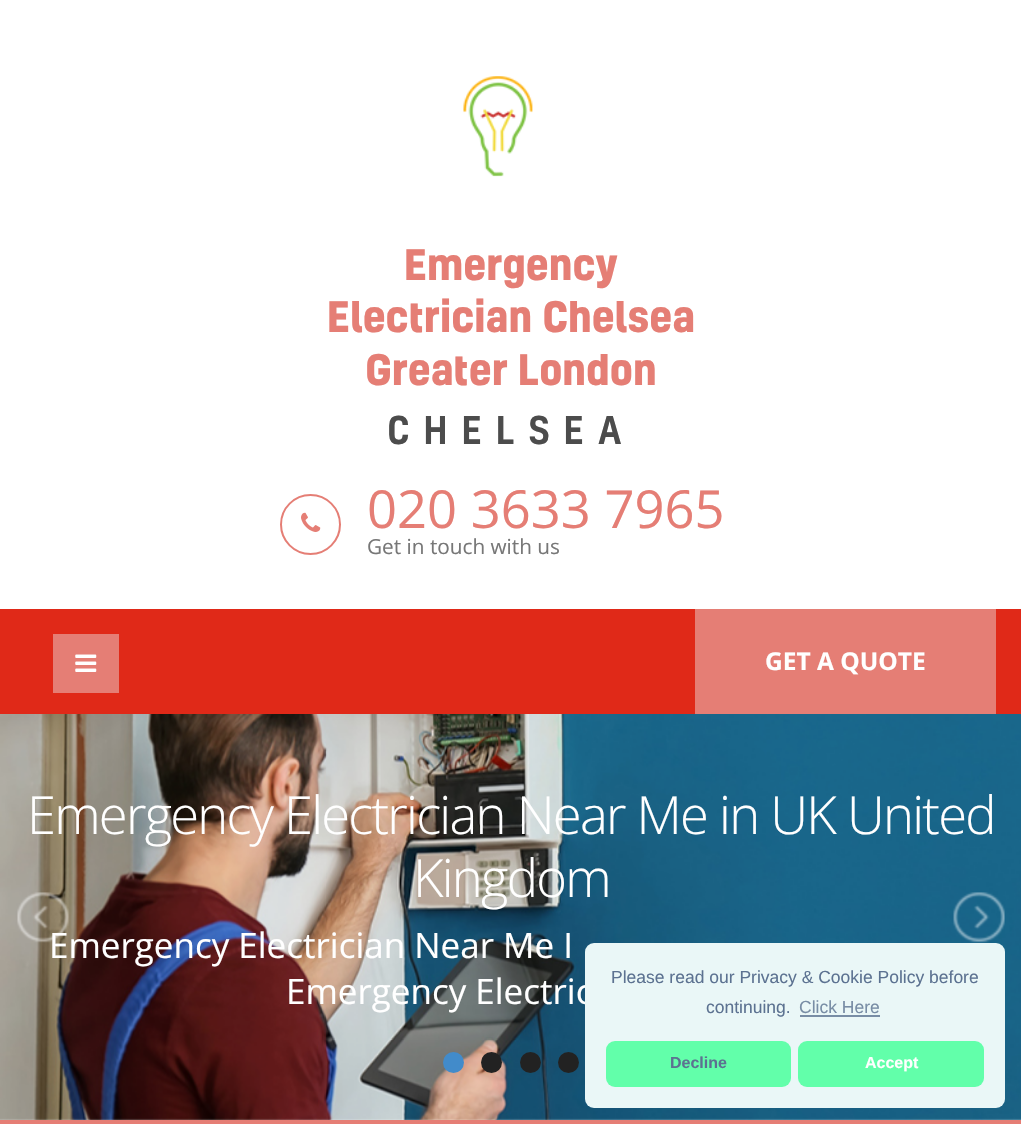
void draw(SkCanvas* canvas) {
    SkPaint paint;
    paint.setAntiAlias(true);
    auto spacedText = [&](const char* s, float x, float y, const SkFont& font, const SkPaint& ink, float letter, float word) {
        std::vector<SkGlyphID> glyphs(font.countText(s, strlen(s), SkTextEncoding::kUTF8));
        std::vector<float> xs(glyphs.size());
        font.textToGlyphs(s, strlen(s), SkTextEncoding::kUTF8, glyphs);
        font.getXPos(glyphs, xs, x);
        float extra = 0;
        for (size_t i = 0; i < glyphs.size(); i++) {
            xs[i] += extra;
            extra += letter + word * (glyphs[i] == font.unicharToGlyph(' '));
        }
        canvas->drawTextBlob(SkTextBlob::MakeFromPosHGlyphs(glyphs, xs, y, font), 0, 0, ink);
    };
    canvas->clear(0xFFFFFFFF);
    canvas->drawImageRect(SkImages::DeferredFromEncodedData(SkData::MakeFromFileName("img1.png")), SkRect::MakeXYWH(463, 76, 70, 101), SkSamplingOptions());
    SkFont font1(fontMgr->matchFamilyStyle("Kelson", SkFontStyle::Bold()), 40.25f);
    font1.setSubpixel(true);
    paint.setColor(0xFFE57E75);
    canvas->drawString("Emergency", 404, 280, font1, paint);
    canvas->drawString("Electrician Chelsea", 327, 332, font1, paint);
    canvas->drawString("Greater London", 365, 385, font1, paint);
    SkFont font2(fontMgr->matchFamilyStyle("Kelson", SkFontStyle(500, SkFontStyle::kNormal_Width, SkFontStyle::kUpright_Slant)), 36.75f);
    font2.setSubpixel(true);
    paint.setColor(0xFF4C4C4C);
    spacedText("CHELSEA", 387, 444, font2, paint, 14, 0);
    paint.setStyle(SkPaint::kStroke_Style);
    paint.setStrokeWidth(2);
    paint.setColor(0xFFE57E75);
    canvas->drawCircle(310.5f, 524.5f, 29.5f, paint);
    canvas->drawImageRect(SkImages::DeferredFromEncodedData(SkData::MakeFromFileName("img2.png")), SkRect::MakeXYWH(301, 512, 20, 20), SkSamplingOptions());
    SkFont font3(fontMgr->matchFamilyStyle("Open Sans", SkFontStyle::Normal()), 52.5f);
    font3.setSubpixel(true);
    paint.setStyle(SkPaint::kFill_Style);
    canvas->drawString("020 3633 7965", 367, 528, font3, paint);
    SkFont font4(fontMgr->matchFamilyStyle("Open Sans", SkFontStyle::Normal()), 20.75f);
    font4.setSubpixel(true);
    paint.setColor(0xFF777777);
    canvas->drawString("Get in touch with us", 367, 554, font4, paint);
    paint.setColor(0xFFE02918);
    canvas->drawRect(SkRect::MakeXYWH(0, 609, 1021, 105), paint);
    paint.setColor(0xFFE57E75);
    canvas->drawRect(SkRect::MakeXYWH(53, 634, 66, 59), paint);
    canvas->drawImageRect(SkImages::DeferredFromEncodedData(SkData::MakeFromFileName("img3.png")), SkRect::MakeXYWH(75, 654, 22, 18), SkSamplingOptions());
    canvas->drawRect(SkRect::MakeXYWH(695, 609, 301, 105), paint);
    SkFont font5(fontMgr->matchFamilyStyle("Open Sans", SkFontStyle::Bold()), 24.5f);
    font5.setSubpixel(true);
    paint.setColor(0xFFFFFFFF);
    canvas->drawString("GET A QUOTE", 765, 670, font5, paint);
    canvas->drawImageRect(SkImages::DeferredFromEncodedData(SkData::MakeFromFileName("img4.png")), SkRect::MakeXYWH(0, 714, 1021, 406), SkSamplingOptions());
    SkFont font6(fontMgr->matchFamilyStyle("Open Sans", SkFontStyle(300, SkFontStyle::kNormal_Width, SkFontStyle::kUpright_Slant)), 52.5f);
    font6.setSubpixel(true);
    spacedText("Emergency Electrician Near Me in UK United", 27, 834, font6, paint, -1.75f, 0);
    spacedText("Kingdom", 413, 897, font6, paint, -1.75f, 0);
    SkFont font7(fontMgr->matchFamilyStyle("Open Sans", SkFontStyle::Normal()), 35);
    font7.setSubpixel(true);
    canvas->drawString("Emergency Electrician Near Me I", 49, 958, font7, paint);
    canvas->drawString("Emergency Electric", 286, 1004, font7, paint);
    canvas->drawImageRect(SkImages::DeferredFromEncodedData(SkData::MakeFromFileName("img5.png")), SkRect::MakeXYWH(17, 892, 53, 51), SkSamplingOptions());
    canvas->drawImageRect(SkImages::DeferredFromEncodedData(SkData::MakeFromFileName("img6.png")), SkRect::MakeXYWH(953, 892, 52, 51), SkSamplingOptions());
    paint.setColor(0xFF428BCA);
    canvas->drawCircle(453.5f, 1062.5f, 10.5f, paint);
    paint.setColor(0xFF222222);
    canvas->drawCircle(491.5f, 1062.5f, 10.5f, paint);
    canvas->drawCircle(530.5f, 1062.5f, 10.5f, paint);
    canvas->drawCircle(568.5f, 1062.5f, 10.5f, paint);
    paint.setColor(0xFFE57E75);
    canvas->drawRect(SkRect::MakeXYWH(0, 1120, 1021, 4), paint);
    paint.setColor(0xFFEAF7F7);
    canvas->drawRoundRect(SkRect::MakeXYWH(585, 943, 420, 165), 9, 9, paint);
    SkFont font8(fontMgr->matchFamilyStyle("Liberation Sans", SkFontStyle::Normal()), 17.5f);
    font8.setSubpixel(true);
    paint.setColor(0xFF5C7291);
    canvas->drawString("Please read our Privacy & Cookie Policy before", 611, 983, font8, paint);
    canvas->drawString("continuing.", 706, 1013, font8, paint);
    paint.setColor(0xFF788DA5);
    canvas->drawString("Click Here", 799, 1013, font8, paint);
    canvas->drawRect(SkRect::MakeXYWH(800, 1015, 80, 2), paint);
    paint.setColor(0xFF62FFAA);
    canvas->drawRoundRect(SkRect::MakeXYWH(606, 1041, 185, 46), 9, 9, paint);
    SkFont font9(fontMgr->matchFamilyStyle("Liberation Sans", SkFontStyle::Bold()), 16);
    font9.setSubpixel(true);
    paint.setColor(0xFF5C7291);
    canvas->drawString("Decline", 670, 1068, font9, paint);
    paint.setColor(0xFF62FFAA);
    canvas->drawRoundRect(SkRect::MakeXYWH(798, 1041, 186, 46), 9, 9, paint);
    paint.setColor(0xFFFFFFFF);
    canvas->drawString("Accept", 865, 1068, font9, paint);
}
